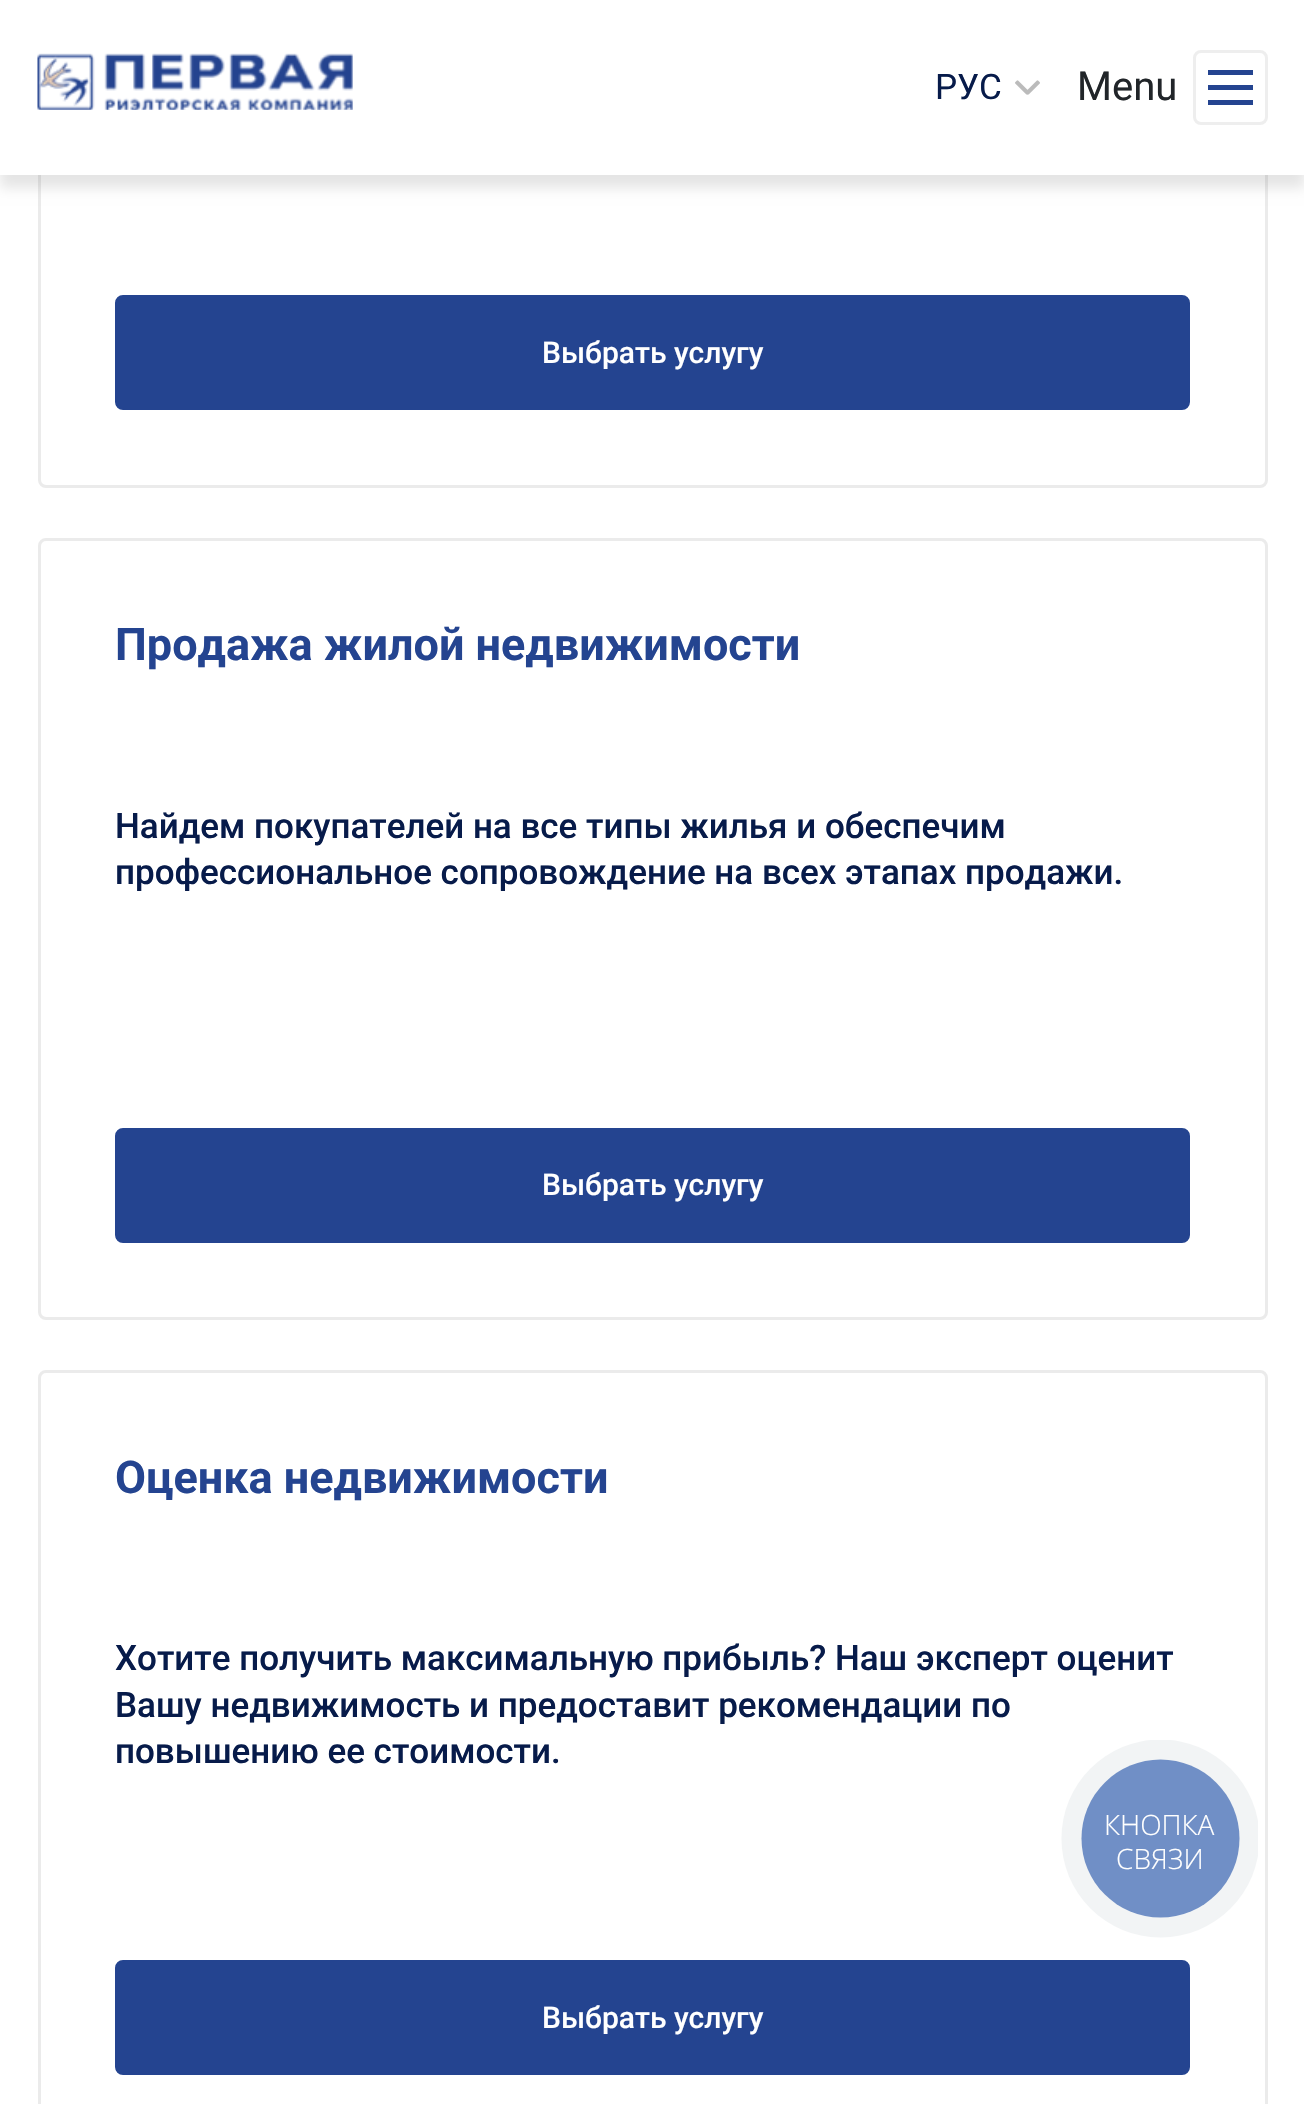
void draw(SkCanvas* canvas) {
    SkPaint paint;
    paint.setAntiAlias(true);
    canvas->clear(0xFFFFFFFF);
    paint.setStyle(SkPaint::kStroke_Style);
    paint.setStrokeWidth(3);
    paint.setColor(0xFFEBEBEB);
    canvas->drawRoundRect(SkRect::MakeXYWH(39.5f, -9.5f, 1227, 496), 6.5f, 6.5f, paint);
    paint.setStyle(SkPaint::kFill_Style);
    paint.setColor(0x1A000000);
    paint.setMaskFilter(SkMaskFilter::MakeBlur(kNormal_SkBlurStyle, 6));
    canvas->drawRect(SkRect::MakeXYWH(0, 13, 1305, 175), paint);
    paint.setMaskFilter(nullptr);
    paint.setColor(0xFFFFFFFF);
    canvas->drawRect(SkRect::MakeXYWH(0, 0, 1304, 175), paint);
    canvas->drawImageRect(SkImages::DeferredFromEncodedData(SkData::MakeFromFileName("img1.png")), SkRect::MakeXYWH(37, 53, 316, 57), SkSamplingOptions());
    canvas->drawImageRect(SkImages::DeferredFromEncodedData(SkData::MakeFromFileName("img2.png")), SkRect::MakeXYWH(1015, 80, 25, 15), SkSamplingOptions());
    SkFont font1(fontMgr->matchFamilyStyle("Roboto", SkFontStyle::Normal()), 35);
    font1.setSubpixel(true);
    paint.setColor(0xFF071B4A);
    canvas->drawString("РУС", 935, 99, font1, paint);
    SkFont font2(fontMgr->matchFamilyStyle("Roboto", SkFontStyle::Normal()), 40);
    font2.setSubpixel(true);
    paint.setColor(0xFF212529);
    canvas->drawString("Menu", 1077, 100, font2, paint);
    paint.setStyle(SkPaint::kStroke_Style);
    paint.setColor(0xFFEEEEEE);
    canvas->drawRoundRect(SkRect::MakeXYWH(1194.5f, 51.5f, 72, 72), 6.5f, 6.5f, paint);
    paint.setStyle(SkPaint::kFill_Style);
    paint.setColor(0xFF244490);
    canvas->drawRect(SkRect::MakeXYWH(1208, 70, 45, 5), paint);
    canvas->drawRect(SkRect::MakeXYWH(1208, 85, 45, 5), paint);
    canvas->drawRect(SkRect::MakeXYWH(1208, 100, 45, 5), paint);
    canvas->drawRoundRect(SkRect::MakeXYWH(116.5f, 296.5f, 1072, 112), 6.5f, 6.5f, paint);
    paint.setStyle(SkPaint::kStroke_Style);
    canvas->drawRoundRect(SkRect::MakeXYWH(116.5f, 296.5f, 1072, 112), 6.5f, 6.5f, paint);
    SkFont font3(fontMgr->matchFamilyStyle("Roboto", SkFontStyle(500, SkFontStyle::kNormal_Width, SkFontStyle::kUpright_Slant)), 30);
    font3.setSubpixel(true);
    paint.setStyle(SkPaint::kFill_Style);
    paint.setColor(0xFFFFFFFF);
    canvas->drawString("Выбрать услугу", 542, 363, font3, paint);
    paint.setStyle(SkPaint::kStroke_Style);
    paint.setColor(0xFFEBEBEB);
    canvas->drawRoundRect(SkRect::MakeXYWH(39.5f, 539.5f, 1227, 779), 6.5f, 6.5f, paint);
    SkFont font4(fontMgr->matchFamilyStyle("Roboto", SkFontStyle::Bold()), 45);
    font4.setSubpixel(true);
    paint.setStyle(SkPaint::kFill_Style);
    paint.setColor(0xFF244490);
    canvas->drawString("Продажа жилой недвижимости", 115, 660, font4, paint);
    SkFont font5(fontMgr->matchFamilyStyle("Roboto", SkFontStyle(500, SkFontStyle::kNormal_Width, SkFontStyle::kUpright_Slant)), 35);
    font5.setSubpixel(true);
    paint.setColor(0xFF071B4A);
    canvas->drawString("Найдем покупателей на все типы жилья и обеспечим", 115, 838, font5, paint);
    canvas->drawString("профессиональное сопровождение на всех этапах продажи.", 115, 884, font5, paint);
    paint.setColor(0xFF244490);
    canvas->drawRoundRect(SkRect::MakeXYWH(116.5f, 1129.5f, 1072, 112), 6.5f, 6.5f, paint);
    paint.setStyle(SkPaint::kStroke_Style);
    canvas->drawRoundRect(SkRect::MakeXYWH(116.5f, 1129.5f, 1072, 112), 6.5f, 6.5f, paint);
    paint.setStyle(SkPaint::kFill_Style);
    paint.setColor(0xFFFFFFFF);
    canvas->drawString("Выбрать услугу", 542, 1195, font3, paint);
    paint.setStyle(SkPaint::kStroke_Style);
    paint.setColor(0xFFEBEBEB);
    canvas->drawRoundRect(SkRect::MakeXYWH(39.5f, 1371.5f, 1227, 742), 6.5f, 6.5f, paint);
    paint.setStyle(SkPaint::kFill_Style);
    paint.setColor(0xFF244490);
    canvas->drawString("Оценка недвижимости", 115, 1493, font4, paint);
    paint.setColor(0xFF071B4A);
    canvas->drawString("Хотите получить максимальную прибыль? Наш эксперт оценит", 115, 1670, font5, paint);
    canvas->drawString("Вашу недвижимость и предоставит рекомендации по", 115, 1717, font5, paint);
    canvas->drawString("повышению ее стоимости.", 115, 1763, font5, paint);
    paint.setColor(0xFF244490);
    canvas->drawRoundRect(SkRect::MakeXYWH(116.5f, 1961.5f, 1072, 112), 6.5f, 6.5f, paint);
    paint.setStyle(SkPaint::kStroke_Style);
    canvas->drawRoundRect(SkRect::MakeXYWH(116.5f, 1961.5f, 1072, 112), 6.5f, 6.5f, paint);
    paint.setStyle(SkPaint::kFill_Style);
    paint.setColor(0xFFFFFFFF);
    canvas->drawString("Выбрать услугу", 542, 2028, font3, paint);
    canvas->save();
    canvas->clipRect(SkRect::MakeXYWH(1060, 1740, 198, 198));
    paint.setColor(0xFFF2F4F5);
    canvas->drawCircle(1160.5f, 1838.5f, 99, paint);
    canvas->restore();
    paint.setColor(0xFF708FC6);
    canvas->drawCircle(1160.5f, 1838.5f, 79, paint);
    SkFont font6(fontMgr->matchFamilyStyle("Open Sans", SkFontStyle(300, SkFontStyle::kNormal_Width, SkFontStyle::kUpright_Slant)), 28);
    font6.setSubpixel(true);
    paint.setColor(0xFFFFFFFF);
    canvas->drawString("КНОПКА", 1104, 1835, font6, paint);
    canvas->drawString("СВЯЗИ", 1116, 1869, font6, paint);
}
